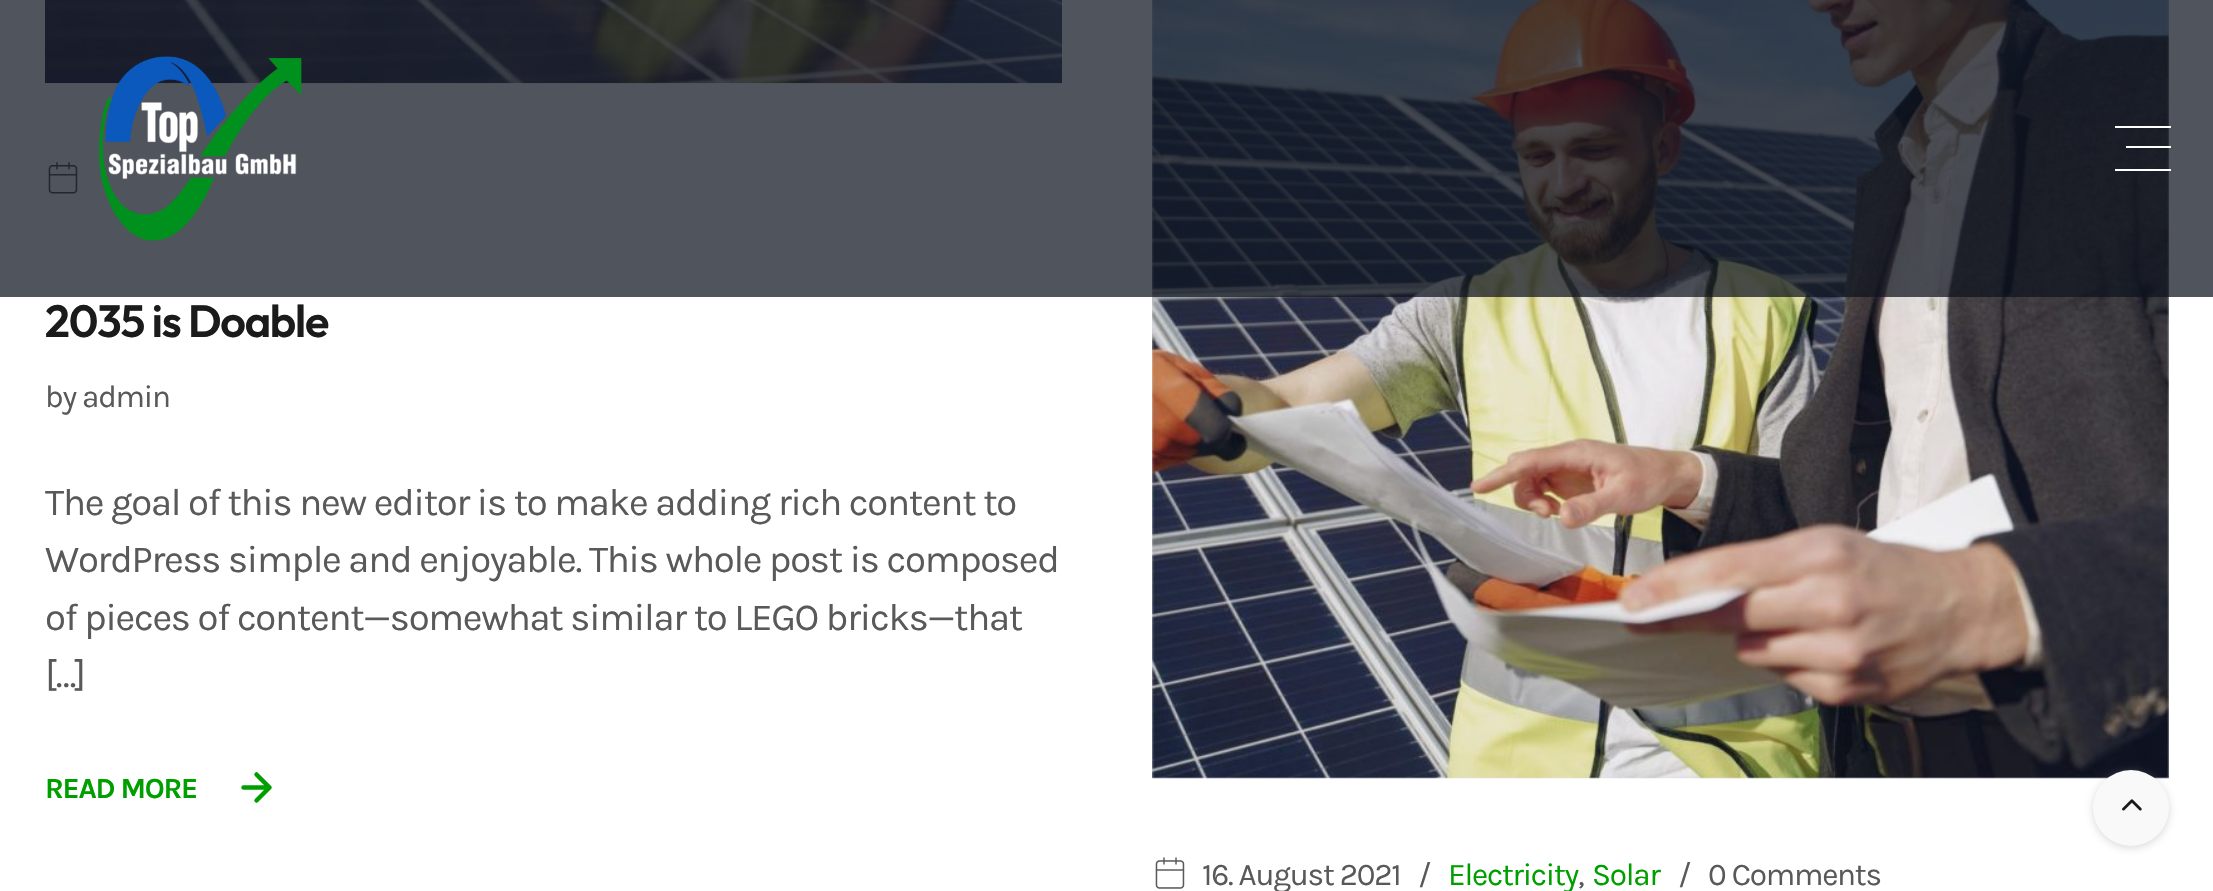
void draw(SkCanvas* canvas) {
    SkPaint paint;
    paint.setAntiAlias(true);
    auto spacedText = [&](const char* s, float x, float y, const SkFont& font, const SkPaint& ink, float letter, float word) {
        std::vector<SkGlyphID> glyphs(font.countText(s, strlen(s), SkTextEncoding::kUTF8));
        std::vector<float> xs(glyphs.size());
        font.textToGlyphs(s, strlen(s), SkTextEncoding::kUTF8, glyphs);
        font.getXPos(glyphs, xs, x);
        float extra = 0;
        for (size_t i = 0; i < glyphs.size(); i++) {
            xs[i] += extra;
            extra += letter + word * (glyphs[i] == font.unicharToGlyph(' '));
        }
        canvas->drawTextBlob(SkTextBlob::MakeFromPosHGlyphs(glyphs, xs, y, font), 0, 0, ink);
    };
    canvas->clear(0xFFFFFFFF);
    canvas->drawImageRect(SkImages::DeferredFromEncodedData(SkData::MakeFromFileName("img2.png")), SkRect::MakeXYWH(45, 0, 1017, 84), SkSamplingOptions());
    canvas->drawImageRect(SkImages::DeferredFromEncodedData(SkData::MakeFromFileName("img3.png")), SkRect::MakeXYWH(48, 162, 30, 32), SkSamplingOptions());
    canvas->drawImageRect(SkImages::DeferredFromEncodedData(SkData::MakeFromFileName("img4.png")), SkRect::MakeXYWH(1152, 0, 1017, 779), SkSamplingOptions());
    paint.setColor(0xB80D121D);
    canvas->drawRect(SkRect::MakeXYWH(0, 0, 2213, 297), paint);
    canvas->drawImageRect(SkImages::DeferredFromEncodedData(SkData::MakeFromFileName("img1.png")), SkRect::MakeXYWH(99, 56, 203, 185), SkSamplingOptions());
    paint.setColor(0xFFFFFFFF);
    canvas->drawRect(SkRect::MakeXYWH(2115, 126, 56, 2), paint);
    canvas->drawRect(SkRect::MakeXYWH(2126, 146, 45, 2), paint);
    canvas->drawRect(SkRect::MakeXYWH(2115, 169, 56, 2), paint);
    SkFont font1(fontMgr->matchFamilyStyle("Outfit", SkFontStyle(600, SkFontStyle::kNormal_Width, SkFontStyle::kUpright_Slant)), 45);
    font1.setSubpixel(true);
    paint.setColor(0xFF1B1B1B);
    spacedText("2035 is Doable", 45, 337, font1, paint, -1.25f, 0);
    SkFont font2(fontMgr->matchFamilyStyle("Karla", SkFontStyle::Normal()), 31.5f);
    font2.setSubpixel(true);
    paint.setColor(0xFF595959);
    spacedText("by admin", 45, 407, font2, paint, -1.25f, 0);
    SkFont font3(fontMgr->matchFamilyStyle("Karla", SkFontStyle::Normal()), 38.25f);
    font3.setSubpixel(true);
    spacedText("The goal of this new editor is to make adding rich content to", 45, 515, font3, paint, -1.25f, 0);
    spacedText("WordPress simple and enjoyable. This whole post is composed", 45, 572, font3, paint, -1.25f, 0);
    spacedText("of pieces of content—somewhat similar to LEGO bricks—that", 45, 630, font3, paint, -1.25f, 0);
    spacedText("[…]", 45, 687, font3, paint, -1.25f, 0);
    SkFont font4(fontMgr->matchFamilyStyle("Karla", SkFontStyle::Bold()), 29.25f);
    font4.setSubpixel(true);
    paint.setColor(0xFF009F00);
    spacedText("READ MORE", 45, 798, font4, paint, -1.25f, 0);
    paint.setStyle(SkPaint::kStroke_Style);
    paint.setStrokeWidth(4.5f);
    paint.setStrokeCap(SkPaint::kRound_Cap);
    paint.setStrokeJoin(SkPaint::kRound_Join);
    canvas->drawPath(SkPathBuilder().moveTo(243.5f, 787.5f).lineTo(269.5f, 787.5f).moveTo(256.5f, 774.5f).lineTo(269.5f, 787.5f).lineTo(256.5f, 800.5f).detach(), paint);
    canvas->drawImageRect(SkImages::DeferredFromEncodedData(SkData::MakeFromFileName("img5.png")), SkRect::MakeXYWH(1155, 857, 30, 32), SkSamplingOptions());
    paint.setStyle(SkPaint::kFill_Style);
    paint.setColor(0xFF595959);
    spacedText("16. August 2021", 1202, 885, font2, paint, -1.25f, 0);
    spacedText("/", 1418, 885, font2, paint, -1.25f, 0);
    paint.setColor(0xFF009F00);
    spacedText("Electricity", 1448, 885, font2, paint, -1.25f, 0);
    paint.setColor(0xFF595959);
    spacedText(",", 1578, 885, font2, paint, -1.25f, 0);
    paint.setColor(0xFF009F00);
    spacedText("Solar", 1592, 885, font2, paint, -1.25f, 0);
    paint.setColor(0xFF595959);
    spacedText("/", 1678, 885, font2, paint, -1.25f, 0);
    spacedText("0 Comments", 1708, 885, font2, paint, -1.25f, 0);
    paint.setColor(0x669AA1AB);
    paint.setMaskFilter(SkMaskFilter::MakeBlur(kNormal_SkBlurStyle, 4.5f));
    canvas->drawRoundRect(SkRect::MakeXYWH(2093, 772, 76, 76), 38, 38, paint);
    paint.setMaskFilter(nullptr);
    paint.setColor(0xFFF9F9F9);
    canvas->drawCircle(2131, 808, 38, paint);
    canvas->drawImageRect(SkImages::DeferredFromEncodedData(SkData::MakeFromFileName("img6.png")), SkRect::MakeXYWH(2122, 799, 20, 12), SkSamplingOptions());
}
